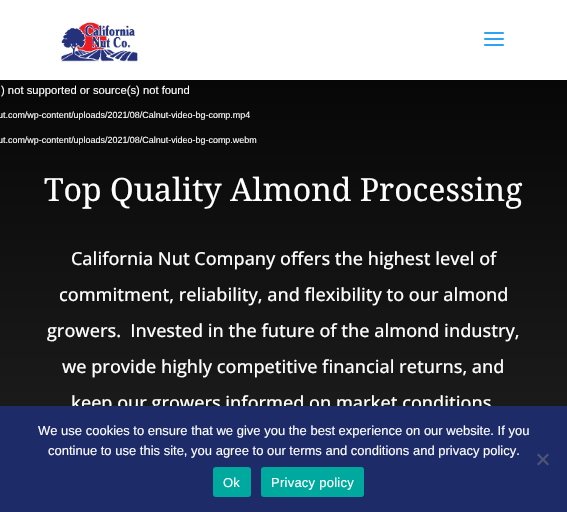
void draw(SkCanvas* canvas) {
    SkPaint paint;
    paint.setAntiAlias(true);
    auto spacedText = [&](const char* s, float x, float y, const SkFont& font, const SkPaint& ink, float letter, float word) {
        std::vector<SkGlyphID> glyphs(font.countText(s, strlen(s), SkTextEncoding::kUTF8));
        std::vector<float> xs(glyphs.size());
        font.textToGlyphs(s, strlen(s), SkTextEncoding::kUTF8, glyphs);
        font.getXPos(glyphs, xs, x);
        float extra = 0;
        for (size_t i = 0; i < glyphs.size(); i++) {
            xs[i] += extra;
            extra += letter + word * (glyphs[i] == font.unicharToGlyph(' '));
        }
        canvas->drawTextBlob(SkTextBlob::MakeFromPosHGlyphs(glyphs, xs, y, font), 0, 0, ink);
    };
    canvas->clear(0xFFFFFFFF);
    canvas->drawImageRect(SkImages::DeferredFromEncodedData(SkData::MakeFromFileName("img1.png")), SkRect::MakeXYWH(61, 22, 77, 40), SkSamplingOptions());
    canvas->drawImageRect(SkImages::DeferredFromEncodedData(SkData::MakeFromFileName("img2.png")), SkRect::MakeXYWH(484, 32, 20, 14), SkSamplingOptions());
    {
        const SkColor colors[] = {0xFF070707, 0xFF222222};
        const float stops[] = {0, 1};
        const SkPoint ends[] = {{284, 79}, {284, 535}};
        paint.setShader(SkGradientShader::MakeLinear(ends, colors, stops, 2, SkTileMode::kClamp));
        paint.setAlpha(255);
    }
    canvas->drawRect(SkRect::MakeXYWH(0, 80, 567, 326), paint);
    SkFont font1(fontMgr->matchFamilyStyle("Liberation Sans", SkFontStyle::Normal()), 11.25f);
    font1.setSubpixel(true);
    paint.setShader(nullptr);
    paint.setColor(0xFFFFFFFF);
    canvas->drawString(") not supported or source(s) not found", 1, 94, font1, paint);
    SkFont font2(fontMgr->matchFamilyStyle("Liberation Sans", SkFontStyle::Normal()), 8.95f);
    font2.setSubpixel(true);
    canvas->drawString("ut.com/wp-content/uploads/2021/08/Calnut-video-bg-comp.mp4", -2, 118, font2, paint);
    canvas->drawString("ut.com/wp-content/uploads/2021/08/Calnut-video-bg-comp.webm", -2, 143, font2, paint);
    SkFont font3(fontMgr->matchFamilyStyle("Noto Serif", SkFontStyle::Normal()), 32);
    font3.setSubpixel(true);
    canvas->drawString("Top Quality Almond Processing", 44, 201, font3, paint);
    SkFont font4(fontMgr->matchFamilyStyle("Open Sans", SkFontStyle(500, SkFontStyle::kNormal_Width, SkFontStyle::kUpright_Slant)), 18);
    font4.setSubpixel(true);
    canvas->drawString("California Nut Company offers the highest level of", 71, 265, font4, paint);
    canvas->drawString("commitment, reliability, and flexibility to our almond", 59, 301, font4, paint);
    canvas->drawString("growers.  Invested in the future of the almond industry,", 47, 337, font4, paint);
    canvas->drawString("we provide highly competitive financial returns, and", 62, 373, font4, paint);
    canvas->drawString("keep our growers informed on market conditions", 71, 409, font4, paint);
    paint.setColor(0xFF1D2C68);
    canvas->drawRect(SkRect::MakeXYWH(0, 406, 567, 106), paint);
    SkFont font5(fontMgr->matchFamilyStyle("Liberation Sans", SkFontStyle::Normal()), 13);
    font5.setSubpixel(true);
    paint.setColor(0xFFFFFFFF);
    canvas->drawString("We use cookies to ensure that we give you the best experience on our website. If you", 38, 435, font5, paint);
    canvas->drawString("continue to use this site, you agree to our terms and conditions and privacy policy.", 48, 455, font5, paint);
    paint.setColor(0xFF4F5674);
    canvas->drawPath(SkPathBuilder().moveTo(547.5f, 453.5f).lineTo(549, 455).lineTo(538.5f, 465.5f).lineTo(537, 464).close().detach(), paint);
    canvas->drawPath(SkPathBuilder().moveTo(537, 455).lineTo(538.5f, 453.5f).lineTo(549, 464).lineTo(547.5f, 465.5f).close().detach(), paint);
    paint.setColor(0xFF00A99D);
    canvas->drawRoundRect(SkRect::MakeXYWH(213, 467, 38, 30), 3, 3, paint);
    paint.setColor(0xFFFFFFFF);
    spacedText("Ok", 223, 487, font5, paint, 0.25f, 0);
    paint.setColor(0xFF00A99D);
    canvas->drawRoundRect(SkRect::MakeXYWH(261, 467, 103, 30), 3, 3, paint);
    paint.setColor(0xFFFFFFFF);
    spacedText("Privacy policy", 271, 487, font5, paint, 0.25f, 0);
}
